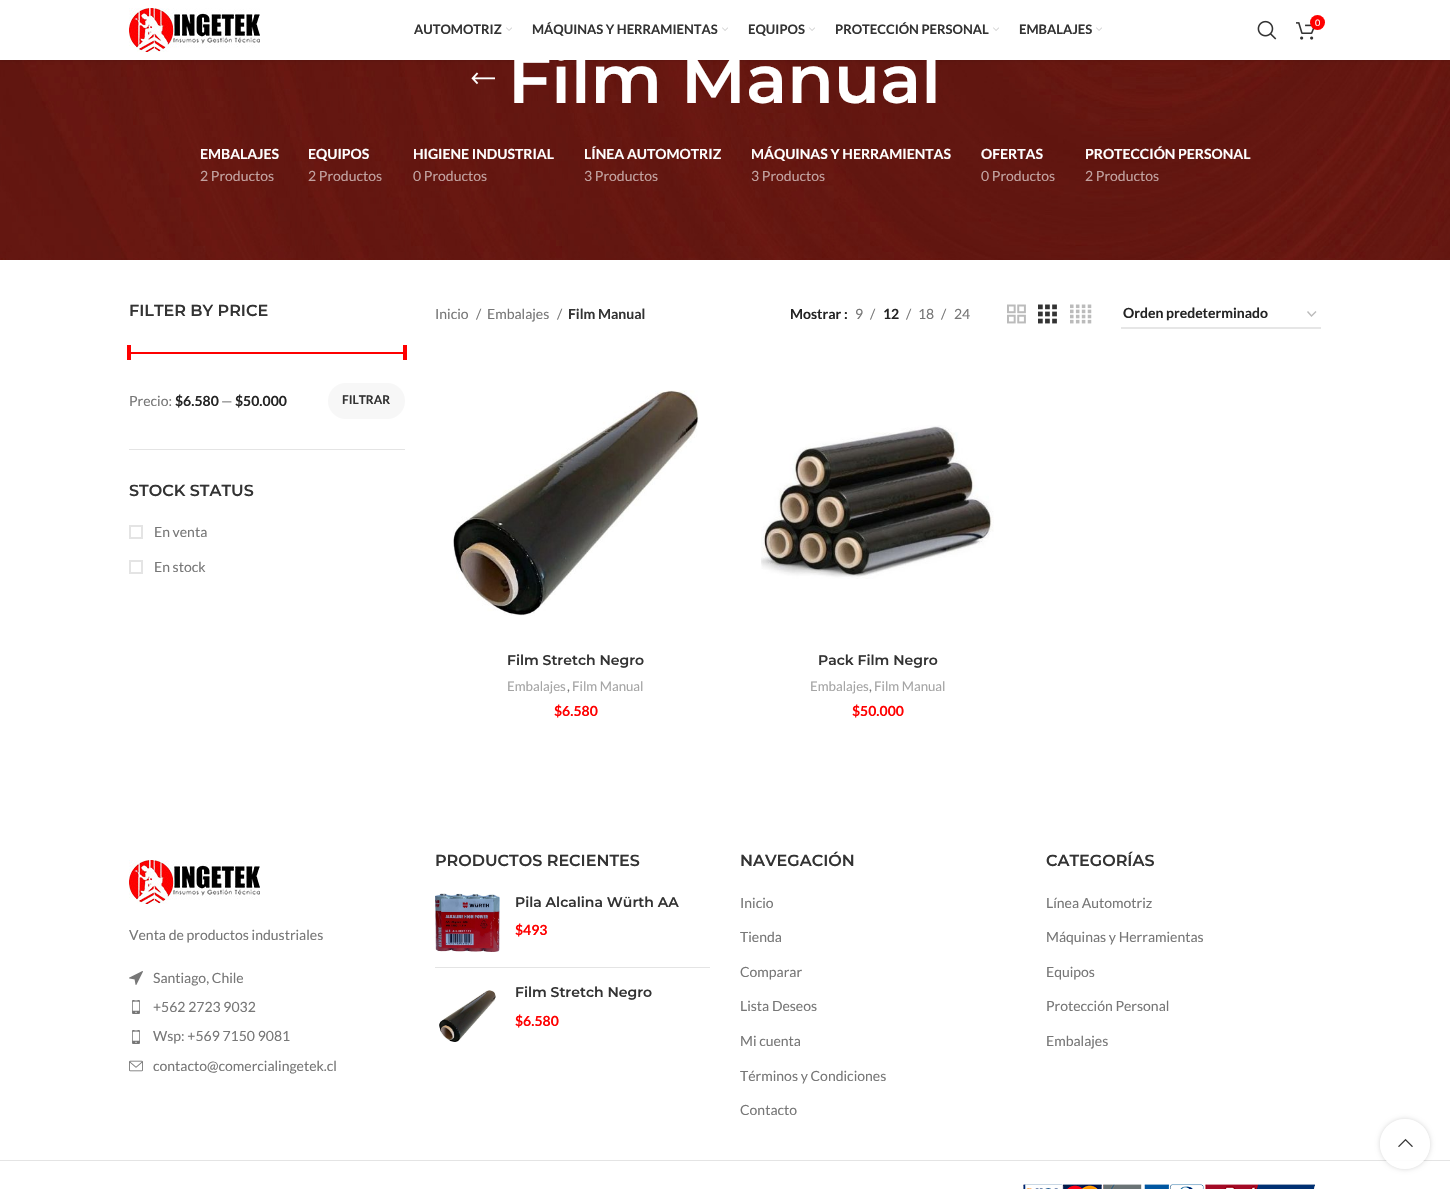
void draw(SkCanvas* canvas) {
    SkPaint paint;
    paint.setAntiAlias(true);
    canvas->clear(0xFFFFFFFF);
    canvas->drawImageRect(SkImages::DeferredFromEncodedData(SkData::MakeFromFileName("img5.png")), SkRect::MakeXYWH(0, 60, 1450, 200), SkSamplingOptions());
    paint.setColor(0x1A000000);
    paint.setMaskFilter(SkMaskFilter::MakeBlur(kNormal_SkBlurStyle, 1.5f));
    canvas->drawRect(SkRect::MakeXYWH(0, 1, 1450, 60), paint);
    paint.setMaskFilter(nullptr);
    paint.setColor(0xFFFFFFFF);
    canvas->drawRect(SkRect::MakeXYWH(0, 0, 1450, 60), paint);
    canvas->drawImageRect(SkImages::DeferredFromEncodedData(SkData::MakeFromFileName("img1.png")), SkRect::MakeXYWH(129, 8, 131, 44), SkSamplingOptions());
    SkFont font1(fontMgr->matchFamilyStyle("Lato", SkFontStyle::Bold()), 13);
    font1.setSubpixel(true);
    paint.setColor(0xFF333333);
    canvas->drawString("AUTOMOTRIZ", 414, 34, font1, paint);
    canvas->drawImageRect(SkImages::DeferredFromEncodedData(SkData::MakeFromFileName("img2.png")), SkRect::MakeXYWH(506, 27, 6, 4), SkSamplingOptions());
    canvas->drawString("MÁQUINAS Y HERRAMIENTAS", 532, 34, font1, paint);
    canvas->drawImageRect(SkImages::DeferredFromEncodedData(SkData::MakeFromFileName("img2.png")), SkRect::MakeXYWH(722, 27, 6, 4), SkSamplingOptions());
    canvas->drawString("EQUIPOS", 748, 34, font1, paint);
    canvas->drawImageRect(SkImages::DeferredFromEncodedData(SkData::MakeFromFileName("img2.png")), SkRect::MakeXYWH(809, 27, 6, 4), SkSamplingOptions());
    canvas->drawString("PROTECCIÓN PERSONAL", 835, 34, font1, paint);
    canvas->drawImageRect(SkImages::DeferredFromEncodedData(SkData::MakeFromFileName("img2.png")), SkRect::MakeXYWH(993, 27, 6, 4), SkSamplingOptions());
    canvas->drawString("EMBALAJES", 1019, 34, font1, paint);
    canvas->drawImageRect(SkImages::DeferredFromEncodedData(SkData::MakeFromFileName("img2.png")), SkRect::MakeXYWH(1096, 27, 6, 4), SkSamplingOptions());
    canvas->drawImageRect(SkImages::DeferredFromEncodedData(SkData::MakeFromFileName("img3.png")), SkRect::MakeXYWH(1257, 20, 20, 20), SkSamplingOptions());
    canvas->drawImageRect(SkImages::DeferredFromEncodedData(SkData::MakeFromFileName("img4.png")), SkRect::MakeXYWH(1296, 22, 19, 18), SkSamplingOptions());
    paint.setColor(0xFFFE0000);
    canvas->drawCircle(1317.5f, 22.5f, 7.5f, paint);
    SkFont font2(fontMgr->matchFamilyStyle("Lato", SkFontStyle::Normal()), 9);
    font2.setSubpixel(true);
    paint.setColor(0xFFFFFFFF);
    canvas->drawString("0", 1315, 26, font2, paint);
    canvas->drawImageRect(SkImages::DeferredFromEncodedData(SkData::MakeFromFileName("img6.png")), SkRect::MakeXYWH(471, 72, 24, 13), SkSamplingOptions());
    SkFont font3(fontMgr->matchFamilyStyle("Montserrat", SkFontStyle(600, SkFontStyle::kNormal_Width, SkFontStyle::kUpright_Slant)), 68);
    font3.setSubpixel(true);
    canvas->drawString("Film Manual", 508, 103, font3, paint);
    SkFont font4(fontMgr->matchFamilyStyle("Lato", SkFontStyle::Bold()), 14);
    font4.setSubpixel(true);
    canvas->drawString("EMBALAJES", 200, 159, font4, paint);
    SkFont font5(fontMgr->matchFamilyStyle("Lato", SkFontStyle::Normal()), 14);
    font5.setSubpixel(true);
    paint.setColor(0xFFC2A2A0);
    canvas->drawString("2 Productos", 200, 181, font5, paint);
    paint.setColor(0xFFFFFFFF);
    canvas->drawString("EQUIPOS", 308, 159, font4, paint);
    paint.setColor(0xFFC2A2A0);
    canvas->drawString("2 Productos", 308, 181, font5, paint);
    paint.setColor(0xFFFFFFFF);
    canvas->drawString("HIGIENE INDUSTRIAL", 413, 159, font4, paint);
    paint.setColor(0xFFC2A2A0);
    canvas->drawString("0 Productos", 413, 181, font5, paint);
    paint.setColor(0xFFFFFFFF);
    canvas->drawString("LÍNEA AUTOMOTRIZ", 584, 159, font4, paint);
    paint.setColor(0xFFC2A2A0);
    canvas->drawString("3 Productos", 584, 181, font5, paint);
    paint.setColor(0xFFFFFFFF);
    canvas->drawString("MÁQUINAS Y HERRAMIENTAS", 751, 159, font4, paint);
    paint.setColor(0xFFC2A2A0);
    canvas->drawString("3 Productos", 751, 181, font5, paint);
    paint.setColor(0xFFFFFFFF);
    canvas->drawString("OFERTAS", 981, 159, font4, paint);
    paint.setColor(0xFFC2A2A0);
    canvas->drawString("0 Productos", 981, 181, font5, paint);
    paint.setColor(0xFFFFFFFF);
    canvas->drawString("PROTECCIÓN PERSONAL", 1085, 159, font4, paint);
    paint.setColor(0xFFC2A2A0);
    canvas->drawString("2 Productos", 1085, 181, font5, paint);
    paint.setColor(0xFFE4E4E4);
    canvas->drawRect(SkRect::MakeXYWH(129, 449, 276, 1), paint);
    SkFont font6(fontMgr->matchFamilyStyle("Montserrat", SkFontStyle(600, SkFontStyle::kNormal_Width, SkFontStyle::kUpright_Slant)), 16);
    font6.setSubpixel(true);
    paint.setColor(0xFF333333);
    canvas->drawString("FILTER BY PRICE", 129, 316, font6, paint);
    paint.setColor(0xFFFE0000);
    canvas->drawRect(SkRect::MakeXYWH(129, 352, 276, 2), paint);
    canvas->drawRect(SkRect::MakeXYWH(127, 345, 4, 15), paint);
    canvas->drawRect(SkRect::MakeXYWH(403, 345, 4, 15), paint);
    paint.setColor(0xFF777777);
    canvas->drawString("Precio:", 129, 406, font5, paint);
    paint.setColor(0xFF242424);
    canvas->drawString("$6.580", 175, 406, font4, paint);
    paint.setColor(0xFF777777);
    canvas->drawString("—", 221, 406, font5, paint);
    paint.setColor(0xFF242424);
    canvas->drawString("$50.000", 235, 406, font4, paint);
    paint.setColor(0xFFF7F7F7);
    canvas->drawRoundRect(SkRect::MakeXYWH(328, 383, 77, 36), 18, 18, paint);
    SkFont font7(fontMgr->matchFamilyStyle("Lato", SkFontStyle::Bold()), 12);
    font7.setSubpixel(true);
    paint.setColor(0xFF333333);
    canvas->drawString("FILTRAR", 342, 404, font7, paint);
    canvas->drawString("STOCK STATUS", 129, 496, font6, paint);
    paint.setStyle(SkPaint::kStroke_Style);
    paint.setStrokeWidth(2);
    paint.setColor(0xFFE4E4E4);
    canvas->drawRect(SkRect::MakeXYWH(130, 526, 12, 12), paint);
    paint.setStyle(SkPaint::kFill_Style);
    paint.setColor(0xFF777777);
    canvas->drawString("En venta", 154, 537, font5, paint);
    paint.setStyle(SkPaint::kStroke_Style);
    paint.setColor(0xFFE4E4E4);
    canvas->drawRect(SkRect::MakeXYWH(130, 561, 12, 12), paint);
    paint.setStyle(SkPaint::kFill_Style);
    paint.setColor(0xFF777777);
    canvas->drawString("En stock", 154, 572, font5, paint);
    canvas->drawString("Inicio", 435, 319, font5, paint);
    canvas->drawString("/", 476, 319, font5, paint);
    canvas->drawString("Embalajes", 487, 319, font5, paint);
    canvas->drawString("/", 557, 319, font5, paint);
    paint.setColor(0xFF333333);
    canvas->drawString("Film Manual", 568, 319, font4, paint);
    paint.setColor(0xFF242424);
    canvas->drawString("Mostrar :", 790, 319, font4, paint);
    paint.setColor(0xFF777777);
    canvas->drawString("9", 855, 319, font5, paint);
    canvas->drawString("/", 870, 319, font5, paint);
    paint.setColor(0xFF242424);
    canvas->drawString("12", 883, 319, font4, paint);
    paint.setColor(0xFF777777);
    canvas->drawString("/", 906, 319, font5, paint);
    canvas->drawString("18", 918, 319, font5, paint);
    canvas->drawString("/", 941, 319, font5, paint);
    canvas->drawString("24", 954, 319, font5, paint);
    canvas->drawImageRect(SkImages::DeferredFromEncodedData(SkData::MakeFromFileName("img7.png")), SkRect::MakeXYWH(1007, 304, 19, 20), SkSamplingOptions());
    canvas->drawImageRect(SkImages::DeferredFromEncodedData(SkData::MakeFromFileName("img8.png")), SkRect::MakeXYWH(1038, 304, 19, 20), SkSamplingOptions());
    canvas->drawImageRect(SkImages::DeferredFromEncodedData(SkData::MakeFromFileName("img9.png")), SkRect::MakeXYWH(1070, 304, 22, 20), SkSamplingOptions());
    paint.setStyle(SkPaint::kStroke_Style);
    paint.setStrokeWidth(1.4f);
    paint.setColor(0xFFBBBBBB);
    canvas->drawPath(SkPathBuilder().moveTo(1307.5f, 311.5f).lineTo(1311.5f, 316).lineTo(1316, 311.5f).detach(), paint);
    paint.setStyle(SkPaint::kFill_Style);
    paint.setColor(0xFFE6E6E6);
    canvas->drawRect(SkRect::MakeXYWH(1121, 327, 200, 2), paint);
    paint.setColor(0xFF242424);
    canvas->drawString("Orden predeterminado", 1123, 318, font4, paint);
    canvas->drawImageRect(SkImages::DeferredFromEncodedData(SkData::MakeFromFileName("img10.png")), SkRect::MakeXYWH(453, 390, 246, 226), SkSamplingOptions());
    SkFont font8(fontMgr->matchFamilyStyle("Montserrat", SkFontStyle(600, SkFontStyle::kNormal_Width, SkFontStyle::kUpright_Slant)), 14);
    font8.setSubpixel(true);
    paint.setColor(0xFF333333);
    canvas->drawString("Film Stretch Negro", 507, 665, font8, paint);
    SkFont font9(fontMgr->matchFamilyStyle("Lato", SkFontStyle::Normal()), 13.25f);
    font9.setSubpixel(true);
    paint.setColor(0xFFA5A5A5);
    canvas->drawString("Embalajes", 507, 691, font9, paint);
    paint.setColor(0xFF777777);
    canvas->drawString(",", 567, 691, font9, paint);
    paint.setColor(0xFFA5A5A5);
    canvas->drawString("Film Manual", 572, 691, font9, paint);
    paint.setColor(0xFFFE0000);
    canvas->drawString("$6.580", 554, 716, font4, paint);
    canvas->drawImageRect(SkImages::DeferredFromEncodedData(SkData::MakeFromFileName("img11.png")), SkRect::MakeXYWH(761, 425, 233, 154), SkSamplingOptions());
    paint.setColor(0xFF333333);
    canvas->drawString("Pack Film Negro", 818, 665, font8, paint);
    paint.setColor(0xFFA5A5A5);
    canvas->drawString("Embalajes", 810, 691, font9, paint);
    paint.setColor(0xFF777777);
    canvas->drawString(",", 869, 691, font9, paint);
    paint.setColor(0xFFA5A5A5);
    canvas->drawString("Film Manual", 874, 691, font9, paint);
    paint.setColor(0xFFFE0000);
    canvas->drawString("$50.000", 852, 716, font4, paint);
    canvas->drawImageRect(SkImages::DeferredFromEncodedData(SkData::MakeFromFileName("img1.png")), SkRect::MakeXYWH(129, 860, 131, 44), SkSamplingOptions());
    paint.setColor(0xFF777777);
    canvas->drawString("Venta de productos industriales", 129, 940, font5, paint);
    canvas->drawImageRect(SkImages::DeferredFromEncodedData(SkData::MakeFromFileName("img12.png")), SkRect::MakeXYWH(129, 971, 14, 14), SkSamplingOptions());
    canvas->drawString("Santiago, Chile", 153, 983, font5, paint);
    canvas->drawImageRect(SkImages::DeferredFromEncodedData(SkData::MakeFromFileName("img13.png")), SkRect::MakeXYWH(132, 1000, 8, 14), SkSamplingOptions());
    canvas->drawString("+562 2723 9032", 153, 1012, font5, paint);
    canvas->drawImageRect(SkImages::DeferredFromEncodedData(SkData::MakeFromFileName("img13.png")), SkRect::MakeXYWH(132, 1030, 8, 14), SkSamplingOptions());
    canvas->drawString("Wsp: +569 7150 9081", 153, 1041, font5, paint);
    canvas->drawImageRect(SkImages::DeferredFromEncodedData(SkData::MakeFromFileName("img14.png")), SkRect::MakeXYWH(129, 1060, 14, 12), SkSamplingOptions());
    canvas->drawString("contacto@comercialingetek.cl", 153, 1071, font5, paint);
    paint.setColor(0xFF333333);
    canvas->drawString("PRODUCTOS RECIENTES", 435, 866, font6, paint);
    paint.setColor(0xFFE4E4E4);
    canvas->drawRect(SkRect::MakeXYWH(435, 967, 275, 1), paint);
    canvas->drawImageRect(SkImages::DeferredFromEncodedData(SkData::MakeFromFileName("img15.png")), SkRect::MakeXYWH(435, 893, 65, 59), SkSamplingOptions());
    paint.setColor(0xFF333333);
    canvas->drawString("Pila Alcalina Würth AA", 515, 907, font8, paint);
    paint.setColor(0xFFFE0000);
    canvas->drawString("$493", 515, 935, font4, paint);
    canvas->drawImageRect(SkImages::DeferredFromEncodedData(SkData::MakeFromFileName("img16.png")), SkRect::MakeXYWH(439, 990, 57, 52), SkSamplingOptions());
    paint.setColor(0xFF333333);
    canvas->drawString("Film Stretch Negro", 515, 997, font8, paint);
    paint.setColor(0xFFFE0000);
    canvas->drawString("$6.580", 515, 1026, font4, paint);
    paint.setColor(0xFF333333);
    canvas->drawString("NAVEGACIÓN", 740, 866, font6, paint);
    paint.setColor(0xFF777777);
    canvas->drawString("Inicio", 740, 908, font5, paint);
    canvas->drawString("Tienda", 740, 942, font5, paint);
    canvas->drawString("Comparar", 740, 977, font5, paint);
    canvas->drawString("Lista Deseos", 740, 1011, font5, paint);
    canvas->drawString("Mi cuenta", 740, 1046, font5, paint);
    canvas->drawString("Términos y Condiciones", 740, 1081, font5, paint);
    canvas->drawString("Contacto", 740, 1115, font5, paint);
    paint.setColor(0xFF333333);
    canvas->drawString("CATEGORÍAS", 1046, 866, font6, paint);
    paint.setColor(0xFF777777);
    canvas->drawString("Línea Automotriz", 1046, 908, font5, paint);
    canvas->drawString("Máquinas y Herramientas", 1046, 942, font5, paint);
    canvas->drawString("Equipos", 1046, 977, font5, paint);
    canvas->drawString("Protección Personal", 1046, 1011, font5, paint);
    canvas->drawString("Embalajes", 1046, 1046, font5, paint);
    paint.setColor(0xFFE4E4E4);
    canvas->drawRect(SkRect::MakeXYWH(0, 1160, 1450, 1), paint);
    canvas->drawImageRect(SkImages::DeferredFromEncodedData(SkData::MakeFromFileName("img17.png")), SkRect::MakeXYWH(1023, 1184, 292, 5), SkSamplingOptions());
    canvas->save();
    canvas->clipPath(SkPathBuilder(SkPathFillType::kEvenOdd).moveTo(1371, 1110).lineTo(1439, 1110).lineTo(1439, 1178).lineTo(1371, 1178).close().moveTo(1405, 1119).cubicTo(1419, 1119, 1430, 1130, 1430, 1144).cubicTo(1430, 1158, 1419, 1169, 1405, 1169).cubicTo(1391, 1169, 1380, 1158, 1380, 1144).cubicTo(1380, 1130, 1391, 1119, 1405, 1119).close().detach(), true);
    paint.setColor(0x2B000000);
    paint.setMaskFilter(SkMaskFilter::MakeBlur(kNormal_SkBlurStyle, 2.5f));
    canvas->drawRoundRect(SkRect::MakeXYWH(1380, 1119, 50, 50), 25, 25, paint);
    paint.setMaskFilter(nullptr);
    canvas->restore();
    paint.setColor(0xE6FFFFFF);
    canvas->drawCircle(1405, 1144, 25, paint);
    canvas->drawImageRect(SkImages::DeferredFromEncodedData(SkData::MakeFromFileName("img18.png")), SkRect::MakeXYWH(1398, 1138, 15, 9), SkSamplingOptions());
}
